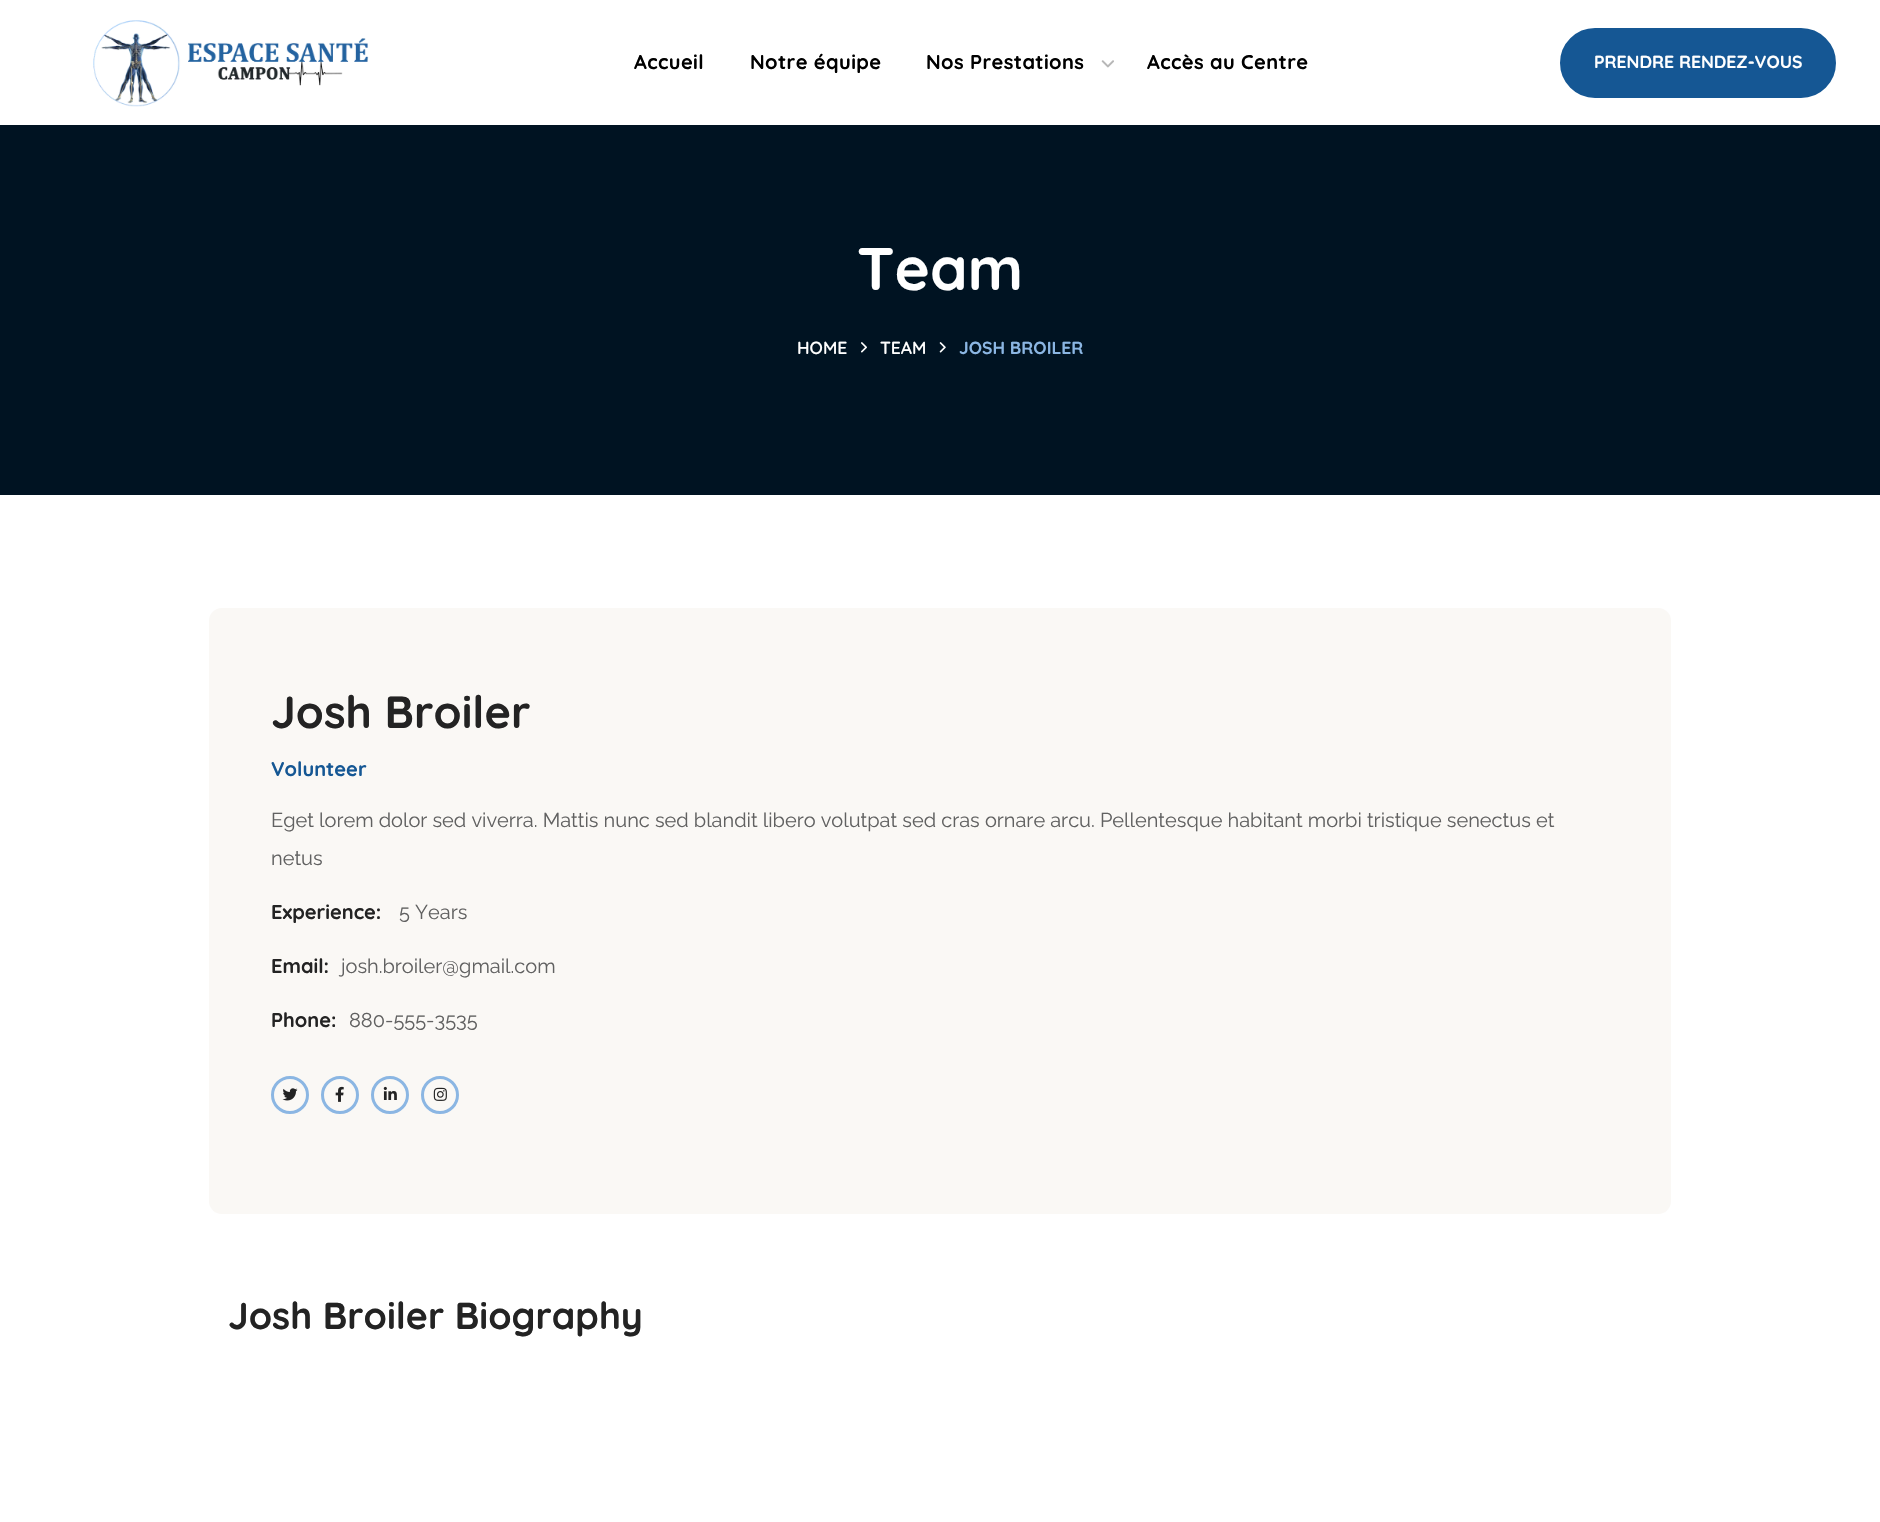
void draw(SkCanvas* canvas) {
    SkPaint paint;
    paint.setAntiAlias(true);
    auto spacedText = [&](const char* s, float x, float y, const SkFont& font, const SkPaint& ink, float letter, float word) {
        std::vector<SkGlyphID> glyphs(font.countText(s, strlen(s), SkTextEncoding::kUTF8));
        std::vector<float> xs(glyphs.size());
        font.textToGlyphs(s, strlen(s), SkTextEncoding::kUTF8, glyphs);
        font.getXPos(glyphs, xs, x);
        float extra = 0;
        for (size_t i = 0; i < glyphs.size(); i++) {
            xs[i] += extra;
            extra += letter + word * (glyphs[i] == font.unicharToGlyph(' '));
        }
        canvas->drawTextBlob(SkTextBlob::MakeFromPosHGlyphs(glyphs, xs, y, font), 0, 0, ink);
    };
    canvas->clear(0xFFFFFFFF);
    canvas->drawImageRect(SkImages::DeferredFromEncodedData(SkData::MakeFromFileName("img1.png")), SkRect::MakeXYWH(93, 20, 276, 87), SkSamplingOptions());
    SkFont font1(fontMgr->matchFamilyStyle("Quicksand", SkFontStyle::Bold()), 20);
    font1.setSubpixel(true);
    paint.setColor(0xFF000000);
    spacedText("Accueil", 634, 69, font1, paint, 0.4f, 0);
    spacedText("Notre équipe", 750, 69, font1, paint, 0.4f, 0);
    spacedText("Nos Prestations", 926, 69, font1, paint, 0.4f, 0);
    canvas->drawImageRect(SkImages::DeferredFromEncodedData(SkData::MakeFromFileName("img2.png")), SkRect::MakeXYWH(1101, 60, 13, 8), SkSamplingOptions());
    spacedText("Accès au Centre", 1147, 69, font1, paint, 0.4f, 0);
    paint.setColor(0xFF155794);
    canvas->drawRoundRect(SkRect::MakeXYWH(1561.5f, 29.5f, 273, 67), 33.5f, 33.5f, paint);
    paint.setStyle(SkPaint::kStroke_Style);
    paint.setStrokeWidth(3);
    canvas->drawRoundRect(SkRect::MakeXYWH(1561.5f, 29.5f, 273, 67), 33.5f, 33.5f, paint);
    SkFont font2(fontMgr->matchFamilyStyle("Quicksand", SkFontStyle::Bold()), 17.5f);
    font2.setSubpixel(true);
    paint.setStyle(SkPaint::kFill_Style);
    paint.setColor(0xFFFFFFFF);
    canvas->drawString("PRENDRE RENDEZ-VOUS", 1594, 68, font2, paint);
    paint.setColor(0xFF001322);
    canvas->drawRect(SkRect::MakeXYWH(0, 125, 1880, 370), paint);
    SkFont font3(fontMgr->matchFamilyStyle("Quicksand", SkFontStyle::Bold()), 60);
    font3.setSubpixel(true);
    paint.setColor(0xFFFFFFFF);
    canvas->drawString("Team", 857, 290, font3, paint);
    SkFont font4(fontMgr->matchFamilyStyle("Quicksand", SkFontStyle(600, SkFontStyle::kNormal_Width, SkFontStyle::kUpright_Slant)), 17.5f);
    font4.setSubpixel(true);
    canvas->drawString("HOME", 797, 354, font4, paint);
    canvas->drawImageRect(SkImages::DeferredFromEncodedData(SkData::MakeFromFileName("img3.png")), SkRect::MakeXYWH(861, 342, 6, 11), SkSamplingOptions());
    canvas->drawString("TEAM", 880, 354, font4, paint);
    canvas->drawImageRect(SkImages::DeferredFromEncodedData(SkData::MakeFromFileName("img4.png")), SkRect::MakeXYWH(939, 342, 7, 11), SkSamplingOptions());
    paint.setColor(0xFF8BB6E3);
    canvas->drawString("JOSH BROILER", 959, 354, font2, paint);
    paint.setColor(0xFFFAF8F5);
    canvas->drawRoundRect(SkRect::MakeXYWH(209, 608, 1462, 606), 13, 13, paint);
    SkFont font5(fontMgr->matchFamilyStyle("Quicksand", SkFontStyle::Bold()), 45);
    font5.setSubpixel(true);
    paint.setColor(0xFF232323);
    canvas->drawString("Josh Broiler", 271, 728, font5, paint);
    paint.setColor(0xFF155794);
    canvas->drawString("Volunteer", 271, 776, font1, paint);
    SkFont font6(fontMgr->matchFamilyStyle("Raleway", SkFontStyle::Normal()), 20);
    font6.setSubpixel(true);
    paint.setColor(0xFF616161);
    canvas->drawString("Eget lorem dolor sed viverra. Mattis nunc sed blandit libero volutpat sed cras ornare arcu. Pellentesque habitant morbi tristique senectus et", 271, 827, font6, paint);
    canvas->drawString("netus", 271, 865, font6, paint);
    paint.setColor(0xFF232323);
    canvas->drawString("Experience:", 271, 919, font1, paint);
    paint.setColor(0xFF616161);
    canvas->drawString("5 Years", 399, 919, font6, paint);
    paint.setColor(0xFF232323);
    canvas->drawString("Email:", 271, 973, font1, paint);
    paint.setColor(0xFF616161);
    canvas->drawString("josh.broiler@gmail.com", 341, 973, font6, paint);
    paint.setColor(0xFF232323);
    canvas->drawString("Phone:", 271, 1027, font1, paint);
    paint.setColor(0xFF616161);
    canvas->drawString("880-555-3535", 349, 1027, font6, paint);
    paint.setStyle(SkPaint::kStroke_Style);
    paint.setColor(0xFF8BB6E3);
    canvas->drawCircle(290, 1095, 17.5f, paint);
    canvas->drawImageRect(SkImages::DeferredFromEncodedData(SkData::MakeFromFileName("img5.png")), SkRect::MakeXYWH(282, 1088, 16, 13), SkSamplingOptions());
    canvas->drawCircle(340, 1095, 17.5f, paint);
    canvas->drawImageRect(SkImages::DeferredFromEncodedData(SkData::MakeFromFileName("img6.png")), SkRect::MakeXYWH(335, 1086, 9, 16), SkSamplingOptions());
    canvas->drawCircle(390, 1095, 17.5f, paint);
    canvas->drawImageRect(SkImages::DeferredFromEncodedData(SkData::MakeFromFileName("img7.png")), SkRect::MakeXYWH(383, 1086, 14, 14), SkSamplingOptions());
    canvas->drawCircle(440, 1095, 17.5f, paint);
    canvas->drawImageRect(SkImages::DeferredFromEncodedData(SkData::MakeFromFileName("img8.png")), SkRect::MakeXYWH(433, 1087, 14, 14), SkSamplingOptions());
    SkFont font7(fontMgr->matchFamilyStyle("Quicksand", SkFontStyle::Bold()), 37.5f);
    font7.setSubpixel(true);
    paint.setStyle(SkPaint::kFill_Style);
    paint.setColor(0xFF232323);
    canvas->drawString("Josh Broiler Biography", 228, 1329, font7, paint);
}
